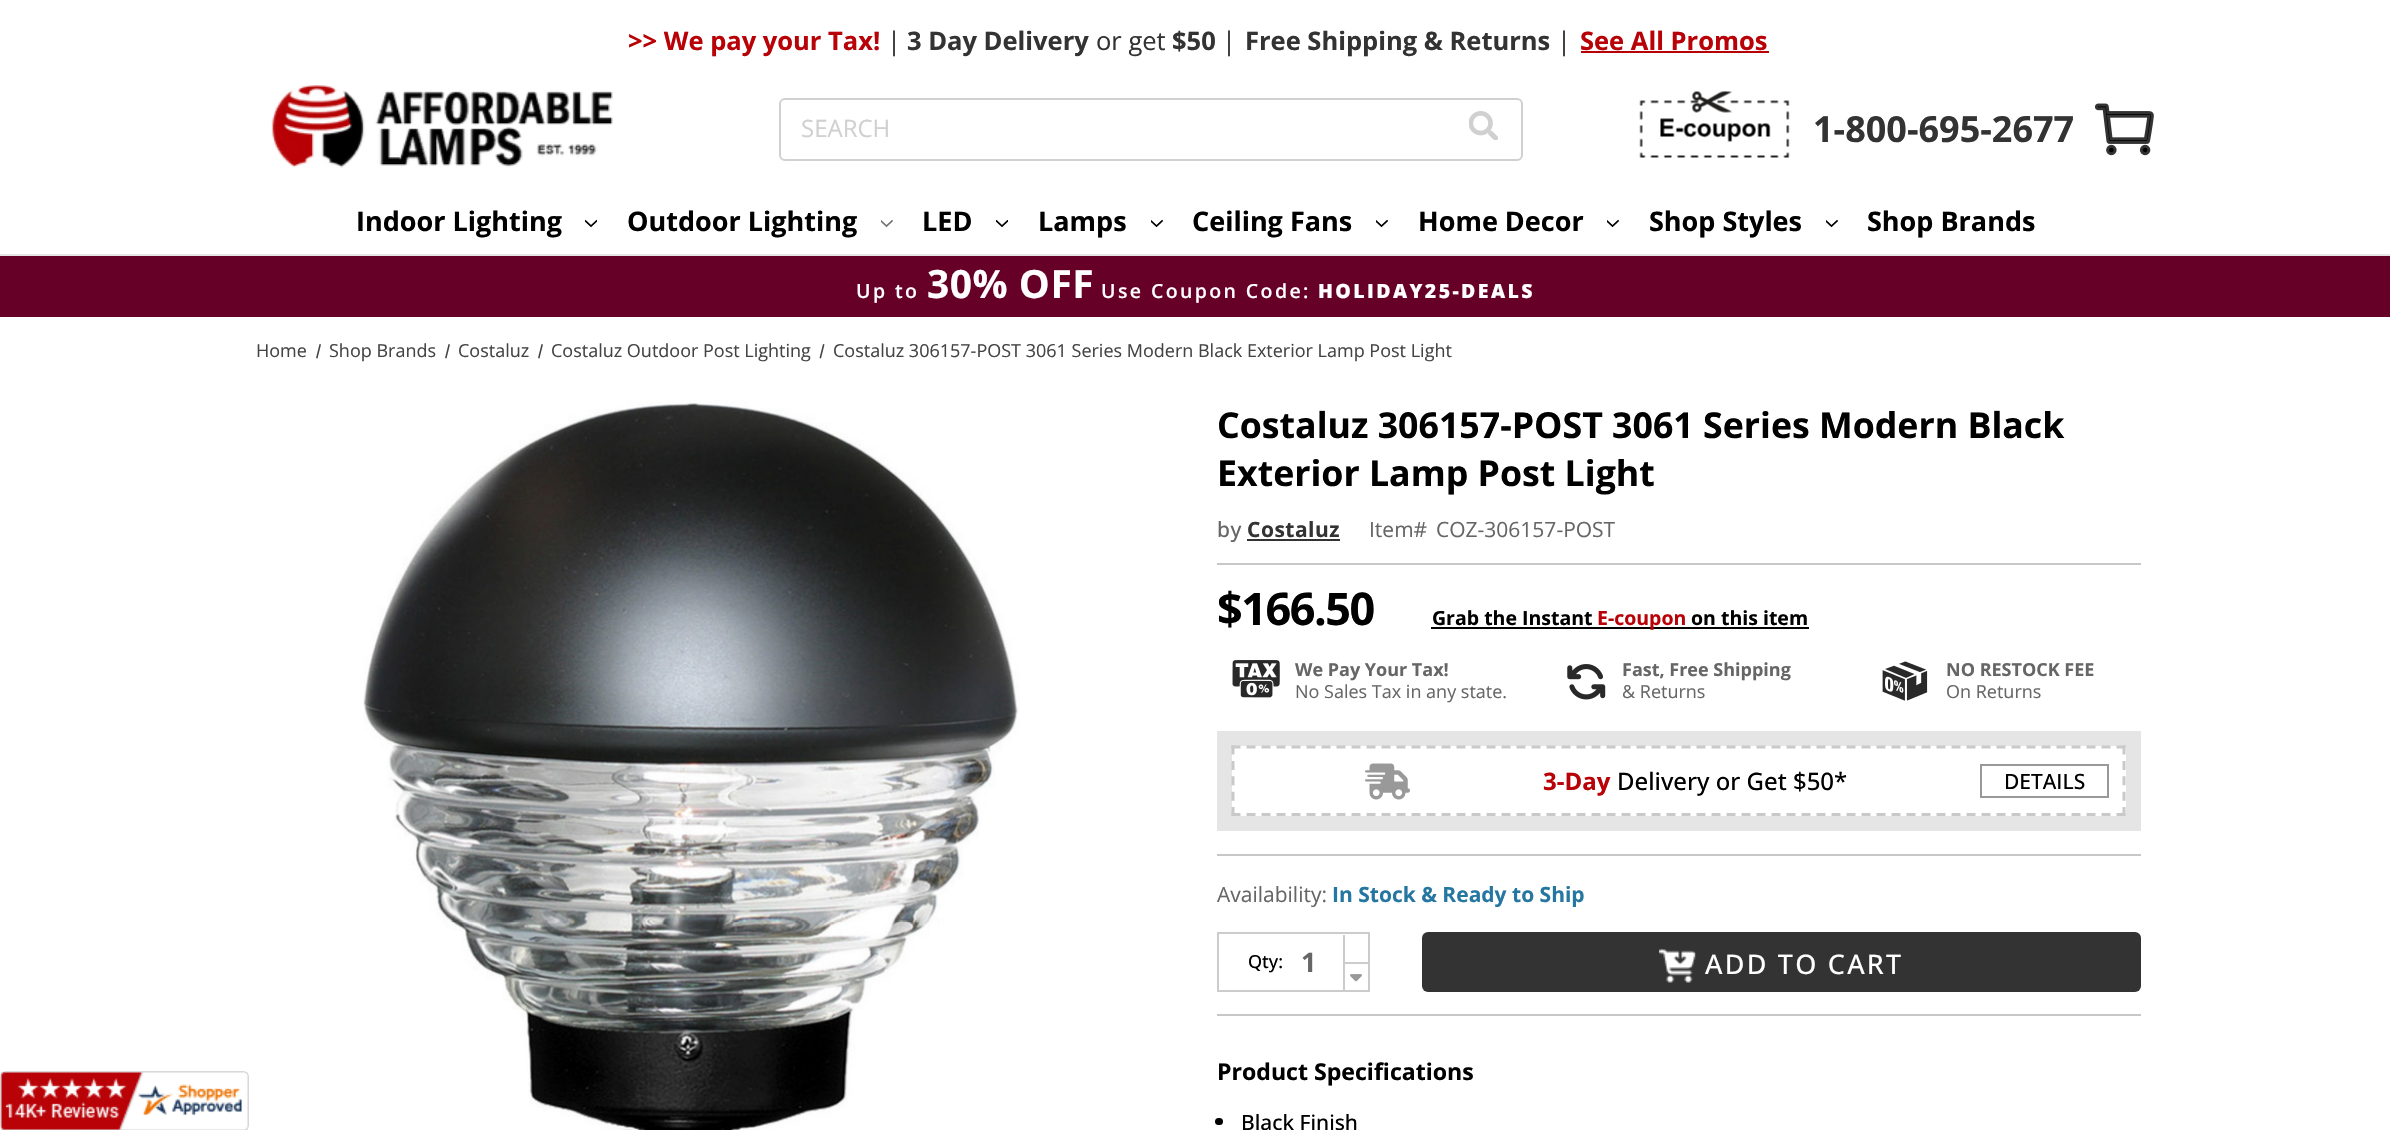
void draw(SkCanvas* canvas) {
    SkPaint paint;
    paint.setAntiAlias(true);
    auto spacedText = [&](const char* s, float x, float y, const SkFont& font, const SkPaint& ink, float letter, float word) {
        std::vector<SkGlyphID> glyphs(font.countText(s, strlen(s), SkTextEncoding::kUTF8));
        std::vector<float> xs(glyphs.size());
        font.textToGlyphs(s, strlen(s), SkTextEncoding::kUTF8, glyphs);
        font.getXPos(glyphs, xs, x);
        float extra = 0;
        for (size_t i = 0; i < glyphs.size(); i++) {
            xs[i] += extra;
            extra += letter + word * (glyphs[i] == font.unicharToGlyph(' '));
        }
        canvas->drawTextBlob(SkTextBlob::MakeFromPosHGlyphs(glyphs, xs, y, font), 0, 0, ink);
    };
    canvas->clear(0xFFFFFFFF);
    paint.setColor(0xFFE5E5E5);
    canvas->drawRect(SkRect::MakeXYWH(0, 254, 2390, 2), paint);
    SkFont font1(fontMgr->matchFamilyStyle("Open Sans", SkFontStyle::Bold()), 25.5f);
    font1.setSubpixel(true);
    paint.setColor(0xFFB80207);
    canvas->drawString(">> We pay your Tax!", 628, 50, font1, paint);
    SkFont font2(fontMgr->matchFamilyStyle("Open Sans", SkFontStyle::Normal()), 25.5f);
    font2.setSubpixel(true);
    paint.setColor(0xFF333333);
    canvas->drawString("|", 887, 50, font2, paint);
    canvas->drawString("3 Day Delivery", 907, 50, font1, paint);
    canvas->drawString("or get", 1096, 50, font2, paint);
    canvas->drawString("$50", 1172, 50, font1, paint);
    canvas->drawString("|", 1222, 50, font2, paint);
    canvas->drawString("Free Shipping & Returns", 1245, 50, font1, paint);
    canvas->drawString("|", 1557, 50, font2, paint);
    paint.setColor(0xFFB80207);
    canvas->drawString("See All Promos", 1580, 50, font1, paint);
    paint.setColor(0xFFB80106);
    canvas->drawRect(SkRect::MakeXYWH(1581, 51, 188, 2), paint);
    canvas->drawImageRect(SkImages::DeferredFromEncodedData(SkData::MakeFromFileName("img1.png")), SkRect::MakeXYWH(271, 83, 342, 85), SkSamplingOptions());
    paint.setStyle(SkPaint::kStroke_Style);
    paint.setStrokeWidth(2);
    paint.setColor(0xFFD1D0D0);
    canvas->drawRoundRect(SkRect::MakeXYWH(780, 99, 742, 61), 5, 5, paint);
    SkFont font3(fontMgr->matchFamilyStyle("Open Sans", SkFontStyle::Normal()), 24);
    font3.setSubpixel(true);
    paint.setStyle(SkPaint::kFill_Style);
    canvas->drawString("SEARCH", 801, 137, font3, paint);
    canvas->drawImageRect(SkImages::DeferredFromEncodedData(SkData::MakeFromFileName("img2.png")), SkRect::MakeXYWH(1469, 111, 29, 29), SkSamplingOptions());
    canvas->drawImageRect(SkImages::DeferredFromEncodedData(SkData::MakeFromFileName("img3.png")), SkRect::MakeXYWH(1639, 91, 151, 67), SkSamplingOptions());
    SkFont font4(fontMgr->matchFamilyStyle("Open Sans", SkFontStyle::Bold()), 36);
    font4.setSubpixel(true);
    paint.setColor(0xFF333333);
    canvas->drawString("1-800-695-2677", 1813, 142, font4, paint);
    canvas->drawImageRect(SkImages::DeferredFromEncodedData(SkData::MakeFromFileName("img4.png")), SkRect::MakeXYWH(2094, 103, 60, 53), SkSamplingOptions());
    SkFont font5(fontMgr->matchFamilyStyle("Open Sans", SkFontStyle::Bold()), 27);
    font5.setSubpixel(true);
    paint.setColor(0xFF000000);
    canvas->drawString("Indoor Lighting", 356, 231, font5, paint);
    canvas->drawImageRect(SkImages::DeferredFromEncodedData(SkData::MakeFromFileName("img5.png")), SkRect::MakeXYWH(585, 219, 12, 9), SkSamplingOptions());
    canvas->drawString("Outdoor Lighting", 627, 231, font5, paint);
    canvas->drawImageRect(SkImages::DeferredFromEncodedData(SkData::MakeFromFileName("img6.png")), SkRect::MakeXYWH(881, 220, 12, 8), SkSamplingOptions());
    canvas->drawString("LED", 922, 231, font5, paint);
    canvas->drawImageRect(SkImages::DeferredFromEncodedData(SkData::MakeFromFileName("img5.png")), SkRect::MakeXYWH(996, 219, 12, 9), SkSamplingOptions());
    canvas->drawString("Lamps", 1038, 231, font5, paint);
    canvas->drawImageRect(SkImages::DeferredFromEncodedData(SkData::MakeFromFileName("img7.png")), SkRect::MakeXYWH(1151, 219, 12, 9), SkSamplingOptions());
    canvas->drawString("Ceiling Fans", 1192, 231, font5, paint);
    canvas->drawImageRect(SkImages::DeferredFromEncodedData(SkData::MakeFromFileName("img7.png")), SkRect::MakeXYWH(1376, 219, 12, 9), SkSamplingOptions());
    canvas->drawString("Home Decor", 1418, 231, font5, paint);
    canvas->drawImageRect(SkImages::DeferredFromEncodedData(SkData::MakeFromFileName("img7.png")), SkRect::MakeXYWH(1607, 219, 12, 9), SkSamplingOptions());
    canvas->drawString("Shop Styles", 1649, 231, font5, paint);
    canvas->drawImageRect(SkImages::DeferredFromEncodedData(SkData::MakeFromFileName("img7.png")), SkRect::MakeXYWH(1826, 219, 12, 9), SkSamplingOptions());
    canvas->drawString("Shop Brands", 1867, 231, font5, paint);
    paint.setColor(0xFF660026);
    canvas->drawRect(SkRect::MakeXYWH(0, 256, 2390, 61), paint);
    SkFont font6(fontMgr->matchFamilyStyle("Open Sans", SkFontStyle(600, SkFontStyle::kNormal_Width, SkFontStyle::kUpright_Slant)), 19.5f);
    font6.setSubpixel(true);
    paint.setColor(0xFFFFFFFF);
    spacedText("Up to", 856, 298, font6, paint, 2.4f, 0);
    SkFont font7(fontMgr->matchFamilyStyle("Open Sans", SkFontStyle::Bold()), 39);
    font7.setSubpixel(true);
    spacedText("30% OFF", 927, 298, font7, paint, 0.5f, 0);
    spacedText("Use Coupon Code:", 1101, 298, font6, paint, 2.4f, 0);
    SkFont font8(fontMgr->matchFamilyStyle("Open Sans", SkFontStyle(800, SkFontStyle::kNormal_Width, SkFontStyle::kUpright_Slant)), 19.5f);
    font8.setSubpixel(true);
    spacedText("HOLIDAY25-DEALS", 1318, 298, font8, paint, 2.4f, 0);
    canvas->drawImageRect(SkImages::DeferredFromEncodedData(SkData::MakeFromFileName("img8.png")), SkRect::MakeXYWH(0, 1071, 249, 59), SkSamplingOptions());
    SkFont font9(fontMgr->matchFamilyStyle("Open Sans", SkFontStyle::Normal()), 18);
    font9.setSubpixel(true);
    paint.setColor(0xFF444444);
    canvas->drawString("Home", 256, 357, font9, paint);
    canvas->drawPath(SkPathBuilder().moveTo(319.5f, 344).lineTo(321, 344.5f).lineTo(317.5f, 358.5f).lineTo(316, 358).close().detach(), paint);
    canvas->drawString("Shop Brands", 329, 357, font9, paint);
    canvas->drawPath(SkPathBuilder().moveTo(448.5f, 344).lineTo(450, 344.5f).lineTo(446.5f, 358.5f).lineTo(445, 358).close().detach(), paint);
    canvas->drawString("Costaluz", 458, 357, font9, paint);
    canvas->drawPath(SkPathBuilder().moveTo(541.5f, 344).lineTo(543, 344.5f).lineTo(539.5f, 358.5f).lineTo(538, 358).close().detach(), paint);
    canvas->drawString("Costaluz Outdoor Post Lighting", 551, 357, font9, paint);
    canvas->drawPath(SkPathBuilder().moveTo(823, 344).lineTo(824.5f, 344.5f).lineTo(821, 358.5f).lineTo(819.5f, 358).close().detach(), paint);
    canvas->drawString("Costaluz 306157-POST 3061 Series Modern Black Exterior Lamp Post Light", 833, 357, font9, paint);
    canvas->drawImageRect(SkImages::DeferredFromEncodedData(SkData::MakeFromFileName("img9.png")), SkRect::MakeXYWH(363, 400, 657, 730), SkSamplingOptions());
    SkFont font10(fontMgr->matchFamilyStyle("Open Sans", SkFontStyle::Bold()), 35.7f);
    font10.setSubpixel(true);
    paint.setColor(0xFF000000);
    canvas->drawString("Costaluz 306157-POST 3061 Series Modern Black", 1217, 438, font10, paint);
    canvas->drawString("Exterior Lamp Post Light", 1217, 486, font10, paint);
    SkFont font11(fontMgr->matchFamilyStyle("Open Sans", SkFontStyle(500, SkFontStyle::kNormal_Width, SkFontStyle::kUpright_Slant)), 21);
    font11.setSubpixel(true);
    paint.setColor(0xFF666666);
    spacedText("by", 1217, 537, font11, paint, 0.5f, 0);
    SkFont font12(fontMgr->matchFamilyStyle("Open Sans", SkFontStyle::Bold()), 21);
    font12.setSubpixel(true);
    paint.setColor(0xFF333333);
    spacedText("Costaluz", 1247, 537, font12, paint, 0.5f, 0);
    canvas->drawRect(SkRect::MakeXYWH(1247, 539, 93, 2), paint);
    SkFont font13(fontMgr->matchFamilyStyle("Open Sans", SkFontStyle::Normal()), 21);
    font13.setSubpixel(true);
    paint.setColor(0xFF666666);
    canvas->drawString("Item#", 1369, 537, font13, paint);
    canvas->drawString("COZ-306157-POST", 1436, 537, font13, paint);
    paint.setColor(0xFFC7C7C7);
    canvas->drawRect(SkRect::MakeXYWH(1217, 563, 924, 2), paint);
    SkFont font14(fontMgr->matchFamilyStyle("Open Sans", SkFontStyle::Bold()), 45);
    font14.setSubpixel(true);
    paint.setColor(0xFF000000);
    spacedText("$166.50", 1217, 625, font14, paint, -1.5f, 0);
    SkFont font15(fontMgr->matchFamilyStyle("Open Sans", SkFontStyle::Bold()), 19.5f);
    font15.setSubpixel(true);
    canvas->drawString("Grab the Instant", 1432, 625, font15, paint);
    canvas->drawRect(SkRect::MakeXYWH(1431, 627, 378, 2), paint);
    paint.setColor(0xFFB80207);
    canvas->drawString("E-coupon", 1597, 625, font15, paint);
    paint.setColor(0xFF000000);
    canvas->drawString("on this item", 1691, 625, font15, paint);
    canvas->drawImageRect(SkImages::DeferredFromEncodedData(SkData::MakeFromFileName("img10.png")), SkRect::MakeXYWH(1232, 660, 48, 38), SkSamplingOptions());
    SkFont font16(fontMgr->matchFamilyStyle("Open Sans", SkFontStyle::Bold()), 18);
    font16.setSubpixel(true);
    paint.setColor(0xFF666666);
    canvas->drawString("We Pay Your Tax!", 1295, 676, font16, paint);
    canvas->drawString("No Sales Tax in any state.", 1295, 698, font9, paint);
    canvas->drawImageRect(SkImages::DeferredFromEncodedData(SkData::MakeFromFileName("img11.png")), SkRect::MakeXYWH(1567, 664, 39, 36), SkSamplingOptions());
    canvas->drawString("Fast, Free Shipping", 1622, 676, font16, paint);
    canvas->drawString("& Returns", 1622, 698, font9, paint);
    canvas->drawImageRect(SkImages::DeferredFromEncodedData(SkData::MakeFromFileName("img12.png")), SkRect::MakeXYWH(1882, 661, 46, 40), SkSamplingOptions());
    canvas->drawString("NO RESTOCK FEE", 1946, 676, font16, paint);
    canvas->drawString("On Returns", 1946, 698, font9, paint);
    paint.setColor(0xFFE5E5E5);
    canvas->drawRect(SkRect::MakeXYWH(1217, 731, 924, 100), paint);
    paint.setColor(0xFFFFFFFF);
    canvas->drawRect(SkRect::MakeXYWH(1232, 746, 894, 70), paint);
    paint.setStyle(SkPaint::kStroke_Style);
    paint.setStrokeWidth(3);
    paint.setColor(0xFFC9C9C9);
    paint.setPathEffect(SkDashPathEffect::Make({{9, 6}}, 0));
    canvas->drawPath(SkPathBuilder().moveTo(1231.5f, 747).lineTo(2125.5f, 747).detach(), paint);
    paint.setPathEffect(nullptr);
    paint.setPathEffect(SkDashPathEffect::Make({{9, 6.38f}}, 0));
    canvas->drawPath(SkPathBuilder().moveTo(2124, 745.5f).lineTo(2124, 816).detach(), paint);
    paint.setPathEffect(nullptr);
    paint.setPathEffect(SkDashPathEffect::Make({{9, 6}}, 0));
    canvas->drawPath(SkPathBuilder().moveTo(1231.5f, 814.5f).lineTo(2125.5f, 814.5f).detach(), paint);
    paint.setPathEffect(nullptr);
    paint.setPathEffect(SkDashPathEffect::Make({{9, 6.38f}}, 0));
    canvas->drawPath(SkPathBuilder().moveTo(1233, 745.5f).lineTo(1233, 816).detach(), paint);
    paint.setPathEffect(nullptr);
    canvas->drawImageRect(SkImages::DeferredFromEncodedData(SkData::MakeFromFileName("img13.png")), SkRect::MakeXYWH(1365, 763, 45, 37), SkSamplingOptions());
    SkFont font17(fontMgr->matchFamilyStyle("Open Sans", SkFontStyle::Bold()), 24);
    font17.setSubpixel(true);
    paint.setStyle(SkPaint::kFill_Style);
    paint.setColor(0xFFB80207);
    canvas->drawString("3-Day", 1543, 790, font17, paint);
    SkFont font18(fontMgr->matchFamilyStyle("Open Sans", SkFontStyle(500, SkFontStyle::kNormal_Width, SkFontStyle::kUpright_Slant)), 24);
    font18.setSubpixel(true);
    paint.setColor(0xFF000000);
    canvas->drawString("Delivery or Get $50*", 1617, 790, font18, paint);
    paint.setStyle(SkPaint::kStroke_Style);
    paint.setStrokeWidth(2);
    paint.setColor(0xFF999999);
    canvas->drawRect(SkRect::MakeXYWH(1981, 765, 127, 32), paint);
    paint.setStyle(SkPaint::kFill_Style);
    paint.setColor(0xFF000000);
    canvas->drawString("DETAILS", 2004, 789, font11, paint);
    paint.setColor(0xFFC7C7C7);
    canvas->drawRect(SkRect::MakeXYWH(1217, 854, 924, 2), paint);
    paint.setColor(0xFF666666);
    canvas->drawString("Availability:", 1217, 902, font13, paint);
    paint.setColor(0xFF2576A1);
    canvas->drawString("In Stock & Ready to Ship", 1332, 902, font12, paint);
    paint.setStyle(SkPaint::kStroke_Style);
    paint.setColor(0xFFCCCCCC);
    canvas->drawRect(SkRect::MakeXYWH(1218, 933, 151, 58), paint);
    SkFont font19(fontMgr->matchFamilyStyle("Open Sans", SkFontStyle(500, SkFontStyle::kNormal_Width, SkFontStyle::kUpright_Slant)), 18);
    font19.setSubpixel(true);
    paint.setStyle(SkPaint::kFill_Style);
    paint.setColor(0xFF000000);
    canvas->drawString("Qty:", 1248, 968, font19, paint);
    paint.setColor(0xFF666666);
    canvas->drawString("1", 1301, 972, font5, paint);
    paint.setColor(0xFFCCCCCC);
    canvas->drawRect(SkRect::MakeXYWH(1343, 935, 2, 55), paint);
    canvas->drawRect(SkRect::MakeXYWH(1344, 962, 24, 2), paint);
    canvas->drawImageRect(SkImages::DeferredFromEncodedData(SkData::MakeFromFileName("img14.png")), SkRect::MakeXYWH(1350, 974, 12, 8), SkSamplingOptions());
    paint.setColor(0xFF333333);
    canvas->drawRoundRect(SkRect::MakeXYWH(1422, 932, 719, 60), 6, 6, paint);
    canvas->drawImageRect(SkImages::DeferredFromEncodedData(SkData::MakeFromFileName("img15.png")), SkRect::MakeXYWH(1659, 949, 37, 34), SkSamplingOptions());
    SkFont font20(fontMgr->matchFamilyStyle("Open Sans", SkFontStyle(500, SkFontStyle::kNormal_Width, SkFontStyle::kUpright_Slant)), 27);
    font20.setSubpixel(true);
    paint.setColor(0xFFFFFFFF);
    spacedText("ADD TO CART", 1705, 974, font20, paint, 2.25f, 0);
    paint.setColor(0xFFC7C7C7);
    canvas->drawRect(SkRect::MakeXYWH(1217, 1014, 924, 2), paint);
    SkFont font21(fontMgr->matchFamilyStyle("Open Sans", SkFontStyle::Bold()), 23.1f);
    font21.setSubpixel(true);
    paint.setColor(0xFF000000);
    canvas->drawString("Product Specifications", 1217, 1080, font21, paint);
    canvas->drawRoundRect(SkRect::MakeXYWH(1215, 1118, 8, 7), 3.5f, 3.5f, paint);
    canvas->drawString("Black Finish", 1241, 1130, font11, paint);
}
